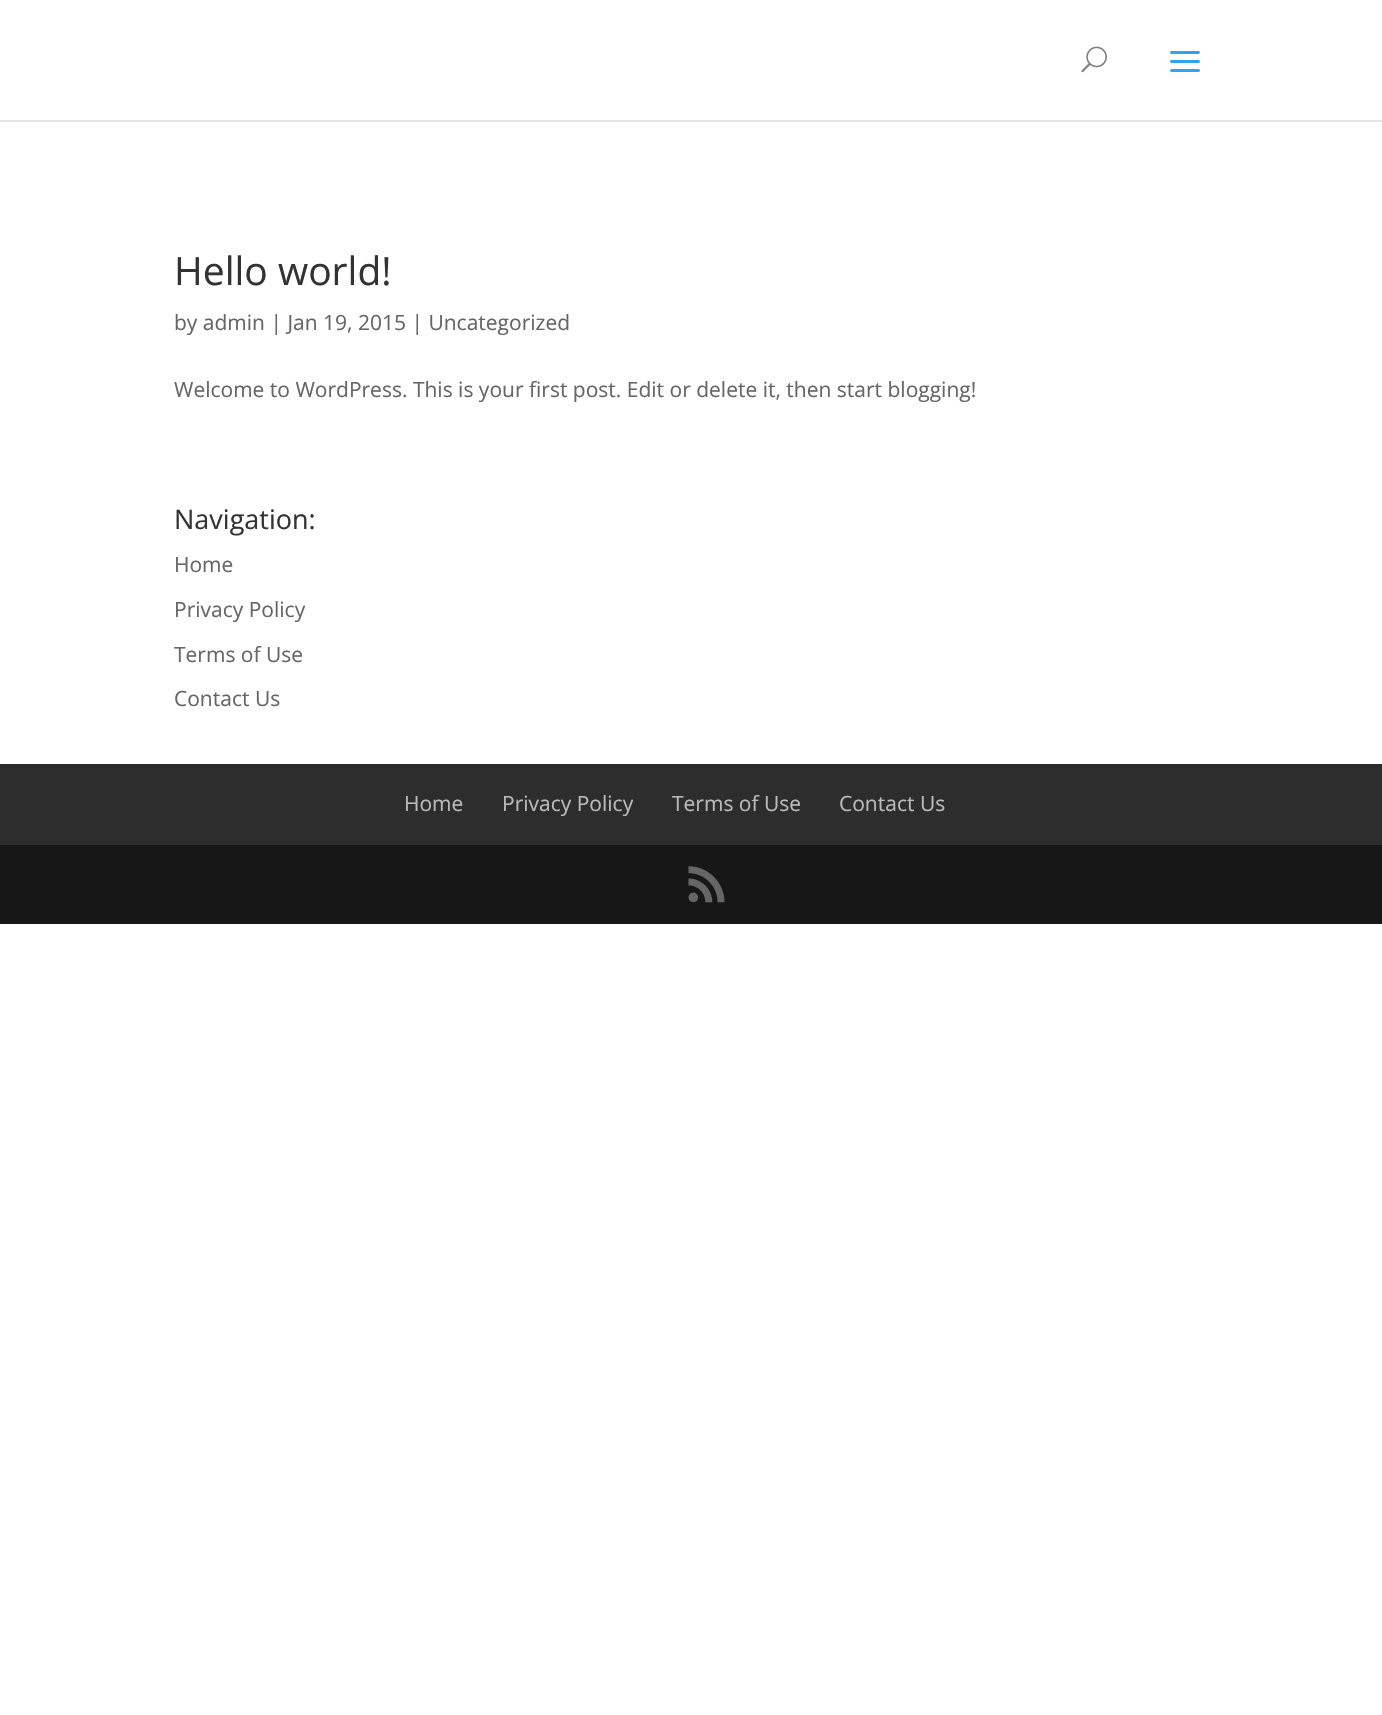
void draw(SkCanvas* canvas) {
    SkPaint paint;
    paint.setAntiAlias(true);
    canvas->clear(0xFFFFFFFF);
    paint.setColor(0xFFE6E6E6);
    canvas->drawRect(SkRect::MakeXYWH(0, 120, 1382, 2), paint);
    canvas->drawImageRect(SkImages::DeferredFromEncodedData(SkData::MakeFromFileName("img1.png")), SkRect::MakeXYWH(1081, 46, 26, 27), SkSamplingOptions());
    canvas->drawImageRect(SkImages::DeferredFromEncodedData(SkData::MakeFromFileName("img2.png")), SkRect::MakeXYWH(1170, 51, 30, 21), SkSamplingOptions());
    SkFont font1(fontMgr->matchFamilyStyle("Open Sans", SkFontStyle::Normal()), 39);
    font1.setSubpixel(true);
    paint.setColor(0xFF333333);
    canvas->drawString("Hello world!", 174, 285, font1, paint);
    SkFont font2(fontMgr->matchFamilyStyle("Open Sans", SkFontStyle::Normal()), 21);
    font2.setSubpixel(true);
    paint.setColor(0xFF666666);
    canvas->drawString("by admin | Jan 19, 2015 | Uncategorized", 174, 330, font2, paint);
    canvas->drawString("Welcome to WordPress. This is your first post. Edit or delete it, then start blogging!", 174, 397, font2, paint);
    SkFont font3(fontMgr->matchFamilyStyle("Open Sans", SkFontStyle::Normal()), 27);
    font3.setSubpixel(true);
    paint.setColor(0xFF333333);
    canvas->drawString("Navigation:", 174, 529, font3, paint);
    paint.setColor(0xFF666666);
    canvas->drawString("Home", 174, 572, font2, paint);
    canvas->drawString("Privacy Policy", 174, 617, font2, paint);
    canvas->drawString("Terms of Use", 174, 662, font2, paint);
    canvas->drawString("Contact Us", 174, 706, font2, paint);
    paint.setColor(0xFF2D2D2D);
    canvas->drawRect(SkRect::MakeXYWH(0, 764, 1382, 81), paint);
    paint.setColor(0xFFBBBBBB);
    canvas->drawString("Home", 404, 811, font2, paint);
    canvas->drawString("Privacy Policy", 502, 811, font2, paint);
    canvas->drawString("Terms of Use", 672, 811, font2, paint);
    canvas->drawString("Contact Us", 839, 811, font2, paint);
    paint.setColor(0xFF171717);
    canvas->drawRect(SkRect::MakeXYWH(0, 845, 1382, 79), paint);
    canvas->drawImageRect(SkImages::DeferredFromEncodedData(SkData::MakeFromFileName("img3.png")), SkRect::MakeXYWH(688, 866, 37, 37), SkSamplingOptions());
}
